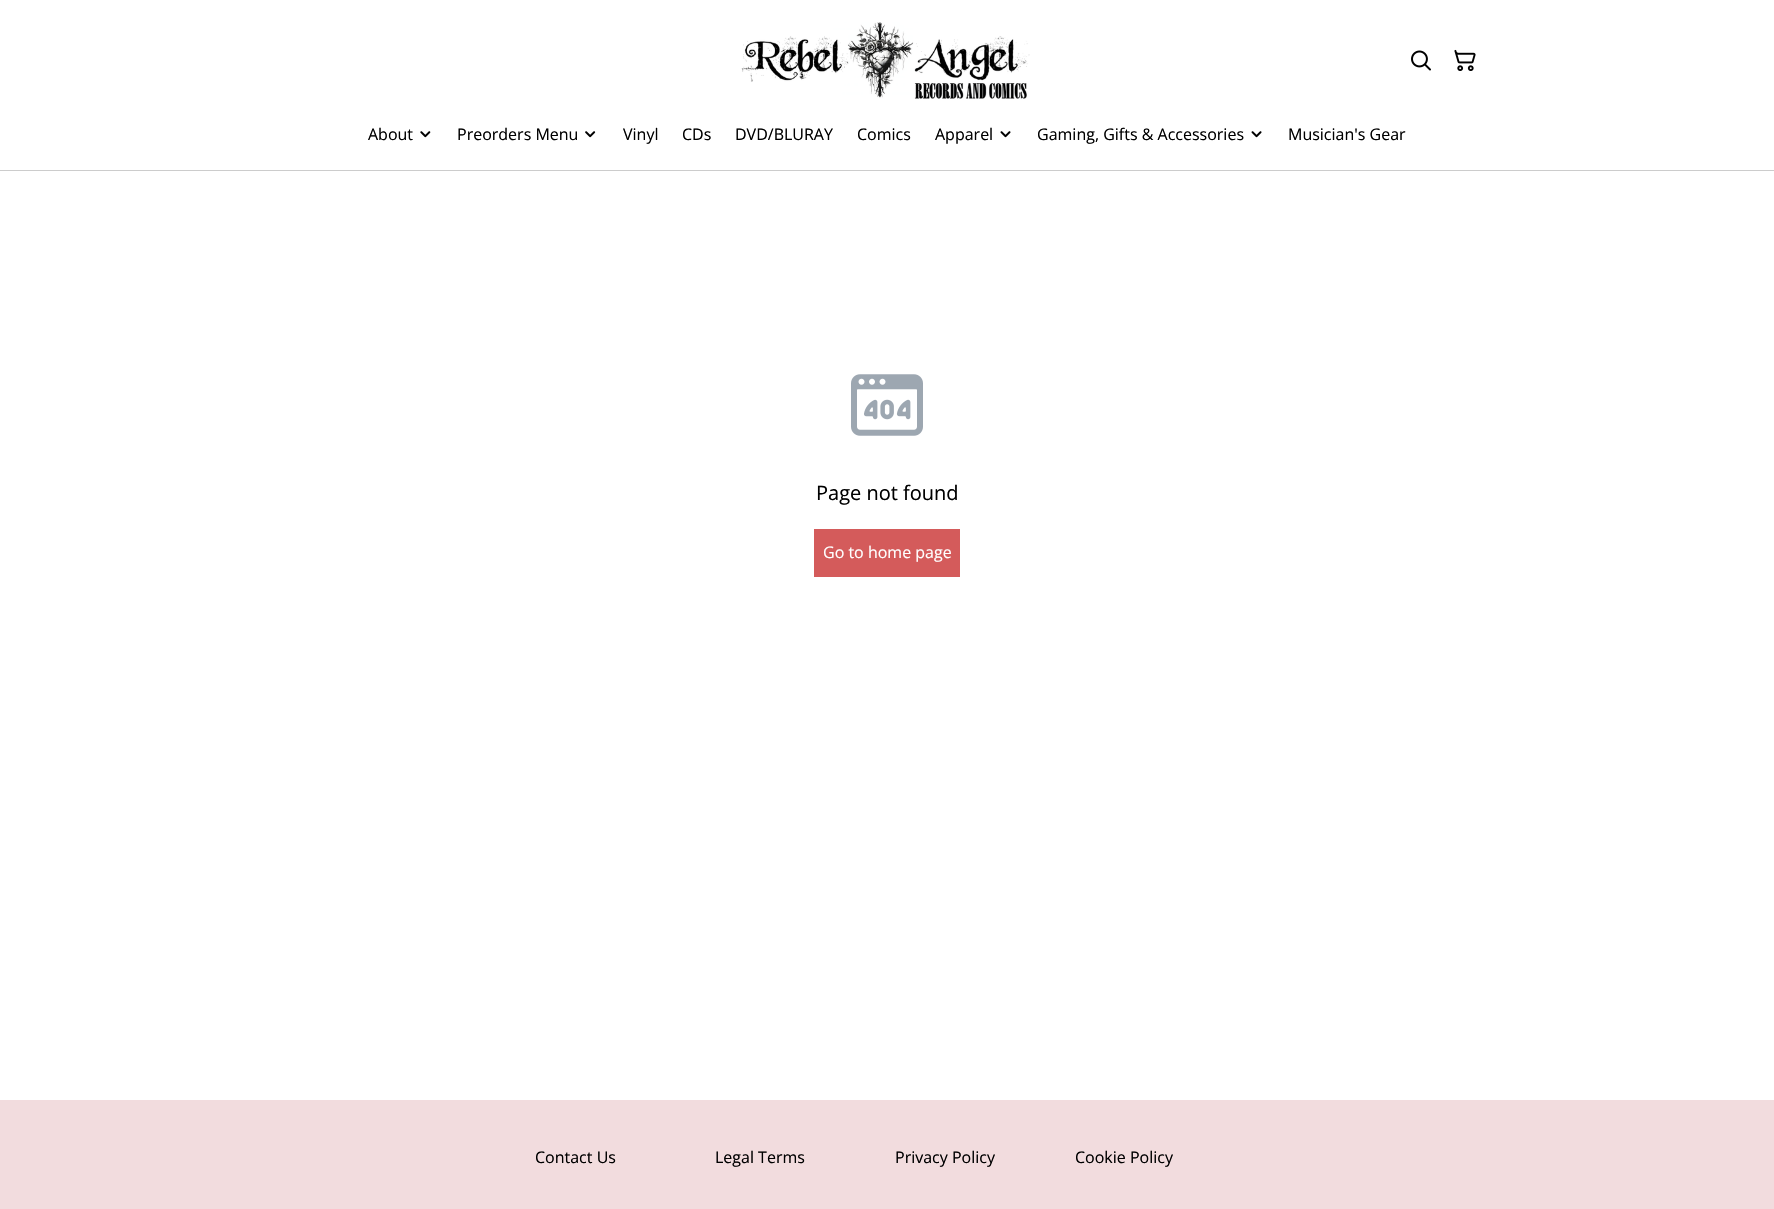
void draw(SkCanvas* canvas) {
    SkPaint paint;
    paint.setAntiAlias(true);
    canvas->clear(0xFFFFFFFF);
    paint.setColor(0xFFCCCCCC);
    canvas->drawRect(SkRect::MakeXYWH(0, 170, 1774, 1), paint);
    canvas->drawImageRect(SkImages::DeferredFromEncodedData(SkData::MakeFromFileName("img1.png")), SkRect::MakeXYWH(741, 22, 289, 77), SkSamplingOptions());
    canvas->drawImageRect(SkImages::DeferredFromEncodedData(SkData::MakeFromFileName("img2.png")), SkRect::MakeXYWH(1411, 50, 20, 21), SkSamplingOptions());
    canvas->drawImageRect(SkImages::DeferredFromEncodedData(SkData::MakeFromFileName("img3.png")), SkRect::MakeXYWH(1454, 49, 22, 22), SkSamplingOptions());
    SkFont font1(fontMgr->matchFamilyStyle("Open Sans", SkFontStyle::Normal()), 16);
    font1.setSubpixel(true);
    paint.setColor(0xFF000000);
    canvas->drawString("About", 368, 140, font1, paint);
    canvas->drawImageRect(SkImages::DeferredFromEncodedData(SkData::MakeFromFileName("img4.png")), SkRect::MakeXYWH(420, 131, 11, 7), SkSamplingOptions());
    canvas->drawString("Preorders Menu", 457, 140, font1, paint);
    canvas->drawImageRect(SkImages::DeferredFromEncodedData(SkData::MakeFromFileName("img5.png")), SkRect::MakeXYWH(585, 131, 11, 7), SkSamplingOptions());
    canvas->drawString("Vinyl", 623, 140, font1, paint);
    canvas->drawString("CDs", 682, 140, font1, paint);
    canvas->drawString("DVD/BLURAY", 735, 140, font1, paint);
    canvas->drawString("Comics", 857, 140, font1, paint);
    canvas->drawString("Apparel", 935, 140, font1, paint);
    canvas->drawImageRect(SkImages::DeferredFromEncodedData(SkData::MakeFromFileName("img6.png")), SkRect::MakeXYWH(1000, 131, 11, 7), SkSamplingOptions());
    canvas->drawString("Gaming, Gifts & Accessories", 1037, 140, font1, paint);
    canvas->drawImageRect(SkImages::DeferredFromEncodedData(SkData::MakeFromFileName("img7.png")), SkRect::MakeXYWH(1251, 131, 11, 7), SkSamplingOptions());
    canvas->drawString("Musician's Gear", 1288, 140, font1, paint);
    canvas->drawImageRect(SkImages::DeferredFromEncodedData(SkData::MakeFromFileName("img8.png")), SkRect::MakeXYWH(851, 374, 72, 62), SkSamplingOptions());
    SkFont font2(fontMgr->matchFamilyStyle("Open Sans", SkFontStyle::Normal()), 20);
    font2.setSubpixel(true);
    canvas->drawString("Page not found", 816, 500, font2, paint);
    paint.setColor(0xFFD45B5B);
    canvas->drawRect(SkRect::MakeXYWH(814, 529, 146, 48), paint);
    paint.setColor(0xFFFFFFFF);
    canvas->drawString("Go to home page", 823, 558, font1, paint);
    paint.setColor(0xFFF2DCDE);
    canvas->drawRect(SkRect::MakeXYWH(0, 1100, 1774, 109), paint);
    paint.setColor(0xFF000000);
    canvas->drawString("Contact Us", 535, 1163, font1, paint);
    canvas->drawString("Legal Terms", 715, 1163, font1, paint);
    canvas->drawString("Privacy Policy", 895, 1163, font1, paint);
    canvas->drawString("Cookie Policy", 1075, 1163, font1, paint);
}
